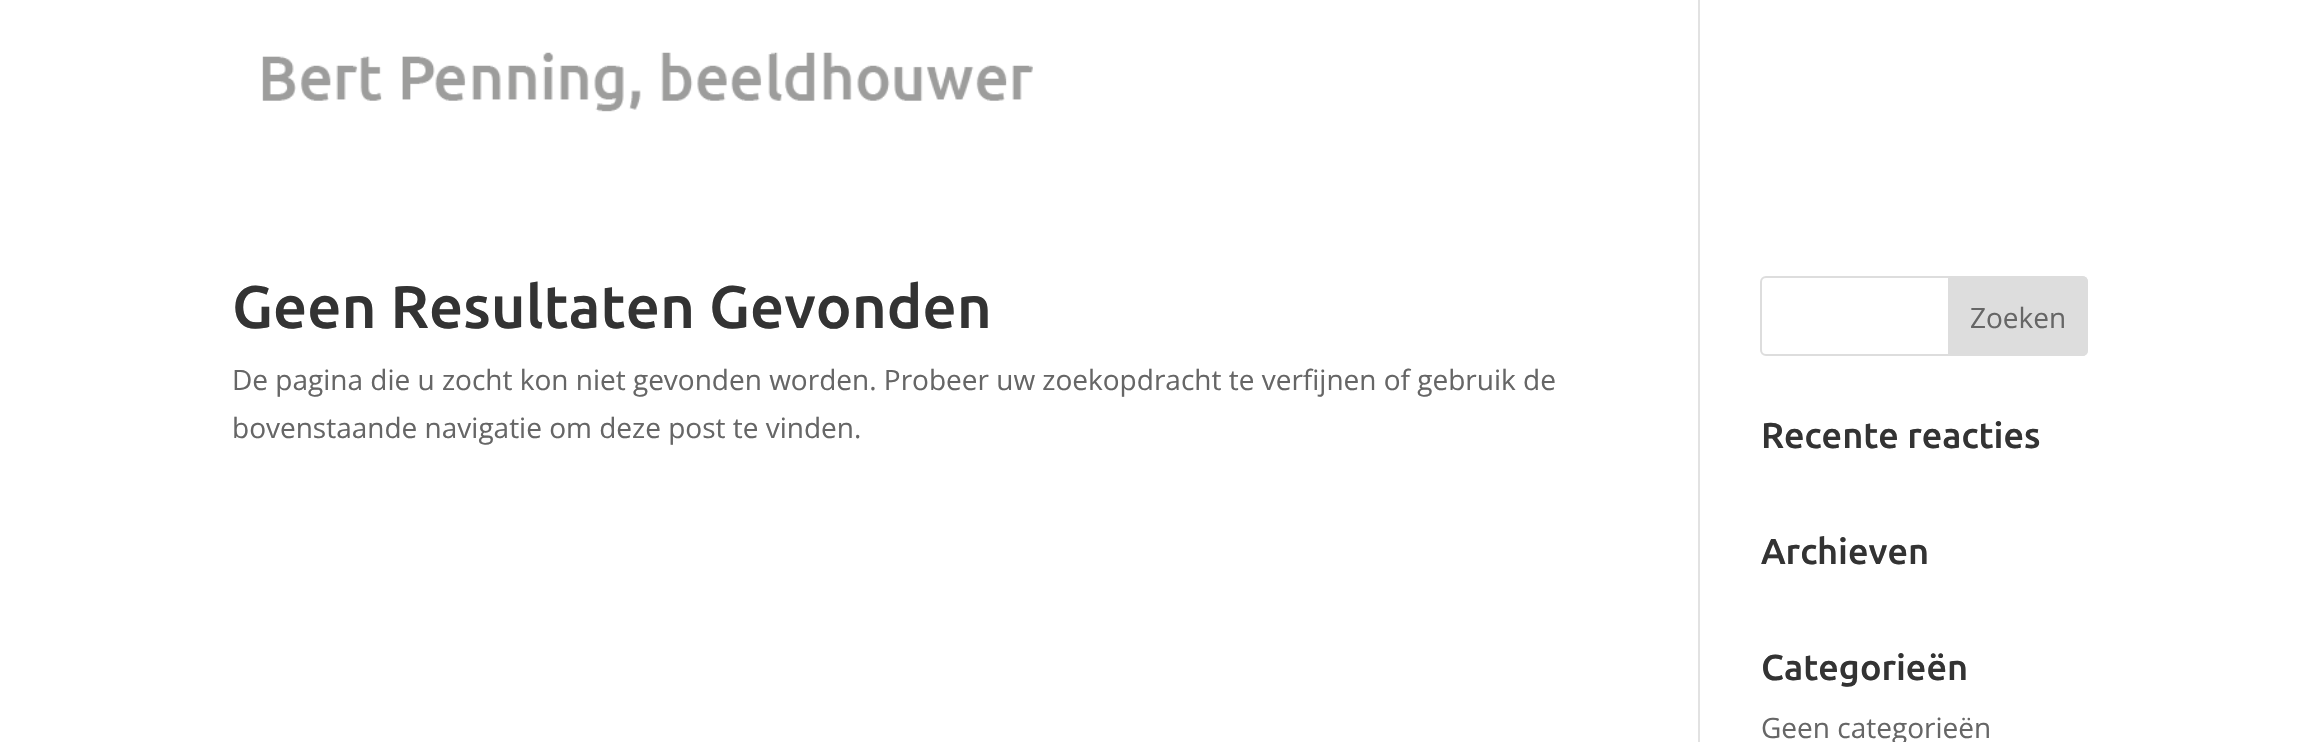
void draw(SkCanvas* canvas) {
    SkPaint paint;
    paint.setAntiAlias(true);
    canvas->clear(0xFFFFFFFF);
    canvas->drawImageRect(SkImages::DeferredFromEncodedData(SkData::MakeFromFileName("img1.png")), SkRect::MakeXYWH(262, 52, 771, 60), SkSamplingOptions());
    paint.setColor(0xFFE2E2E2);
    canvas->drawRect(SkRect::MakeXYWH(1698, 0, 2, 742), paint);
    SkFont font1(fontMgr->matchFamilyStyle("Ubuntu", SkFontStyle(500, SkFontStyle::kNormal_Width, SkFontStyle::kUpright_Slant)), 60);
    font1.setSubpixel(true);
    paint.setColor(0xFF333333);
    canvas->drawString("Geen Resultaten Gevonden", 232, 328, font1, paint);
    SkFont font2(fontMgr->matchFamilyStyle("Open Sans", SkFontStyle::Normal()), 28);
    font2.setSubpixel(true);
    paint.setColor(0xFF666666);
    canvas->drawString("De pagina die u zocht kon niet gevonden worden. Probeer uw zoekopdracht te verfijnen of gebruik de", 232, 390, font2, paint);
    canvas->drawString("bovenstaande navigatie om deze post te vinden.", 232, 438, font2, paint);
    paint.setStyle(SkPaint::kStroke_Style);
    paint.setStrokeWidth(2);
    paint.setColor(0xFFDDDDDD);
    canvas->drawRoundRect(SkRect::MakeXYWH(1761, 277, 326, 78), 5, 5, paint);
    paint.setStyle(SkPaint::kFill_Style);
    canvas->drawPath(SkPathBuilder().moveTo(1949, 277).lineTo(2082, 277).cubicTo(2085, 277, 2087, 279, 2087, 282).lineTo(2087, 350).cubicTo(2087, 353, 2085, 355, 2082, 355).lineTo(1949, 355).close().detach(), paint);
    paint.setStyle(SkPaint::kStroke_Style);
    canvas->drawPath(SkPathBuilder().moveTo(1949, 277).lineTo(2082, 277).cubicTo(2085, 277, 2087, 279, 2087, 282).lineTo(2087, 350).cubicTo(2087, 353, 2085, 355, 2082, 355).lineTo(1949, 355).close().detach(), paint);
    paint.setStyle(SkPaint::kFill_Style);
    paint.setColor(0xFF666666);
    canvas->drawString("Zoeken", 1970, 328, font2, paint);
    SkFont font3(fontMgr->matchFamilyStyle("Ubuntu", SkFontStyle(500, SkFontStyle::kNormal_Width, SkFontStyle::kUpright_Slant)), 36);
    font3.setSubpixel(true);
    paint.setColor(0xFF333333);
    canvas->drawString("Recente reacties", 1761, 448, font3, paint);
    canvas->drawString("Archieven", 1761, 564, font3, paint);
    canvas->drawString("Categorieën", 1761, 680, font3, paint);
    paint.setColor(0xFF666666);
    canvas->drawString("Geen categorieën", 1761, 738, font2, paint);
}
